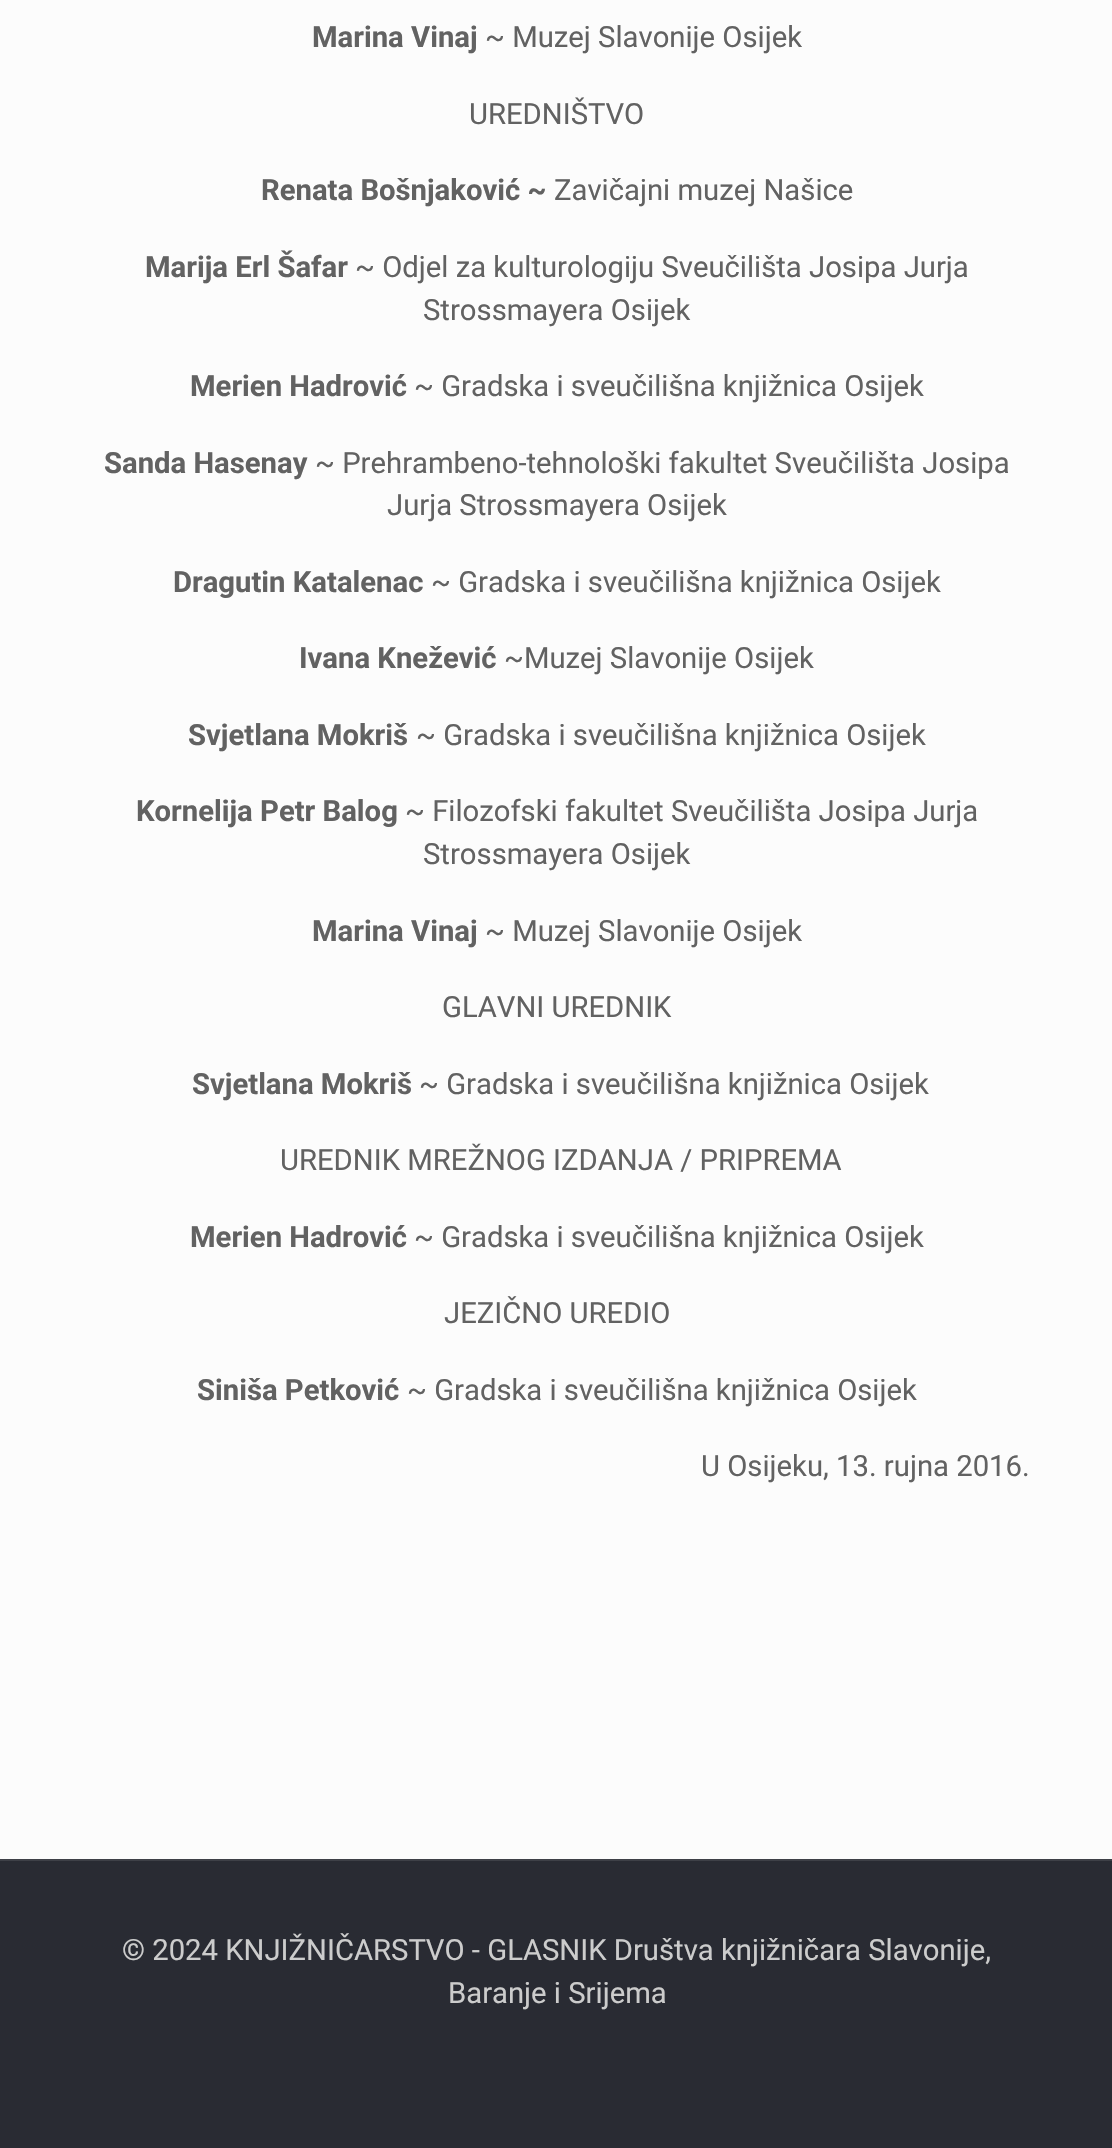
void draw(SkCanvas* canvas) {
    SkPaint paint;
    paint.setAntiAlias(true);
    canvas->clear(0xFFFCFCFC);
    SkFont font1(fontMgr->matchFamilyStyle("Roboto", SkFontStyle::Bold()), 29.25f);
    font1.setSubpixel(true);
    paint.setColor(0xFF626262);
    canvas->drawString("Marina Vinaj", 312, 47, font1, paint);
    SkFont font2(fontMgr->matchFamilyStyle("Roboto", SkFontStyle::Normal()), 29.25f);
    font2.setSubpixel(true);
    canvas->drawString("~ Muzej Slavonije Osijek", 485, 47, font2, paint);
    canvas->drawString("UREDNIŠTVO", 469, 124, font2, paint);
    canvas->drawString("Renata Bošnjaković ~", 261, 200, font1, paint);
    canvas->drawString("Zavičajni muzej Našice", 554, 200, font2, paint);
    canvas->drawString("Marija Erl Šafar", 145, 277, font1, paint);
    canvas->drawString("~ Odjel za kulturologiju Sveučilišta Josipa Jurja", 355, 277, font2, paint);
    canvas->drawString("Strossmayera Osijek", 423, 320, font2, paint);
    canvas->drawString("Merien Hadrović", 190, 396, font1, paint);
    canvas->drawString("~ Gradska i sveučilišna knjižnica Osijek", 414, 396, font2, paint);
    canvas->drawString("Sanda Hasenay", 104, 473, font1, paint);
    canvas->drawString("~ Prehrambeno-tehnološki fakultet Sveučilišta Josipa", 315, 473, font2, paint);
    canvas->drawString("Jurja Strossmayera Osijek", 387, 515, font2, paint);
    canvas->drawString("Dragutin Katalenac", 173, 592, font1, paint);
    canvas->drawString("~ Gradska i sveučilišna knjižnica Osijek", 431, 592, font2, paint);
    canvas->drawString("Ivana Knežević", 299, 668, font1, paint);
    canvas->drawString("~Muzej Slavonije Osijek", 504, 668, font2, paint);
    canvas->drawString("Svjetlana Mokriš", 188, 745, font1, paint);
    canvas->drawString("~ Gradska i sveučilišna knjižnica Osijek", 416, 745, font2, paint);
    canvas->drawString("Kornelija Petr Balog", 136, 821, font1, paint);
    canvas->drawString("~ Filozofski fakultet Sveučilišta Josipa Jurja", 405, 821, font2, paint);
    canvas->drawString("Strossmayera Osijek", 423, 864, font2, paint);
    canvas->drawString("Marina Vinaj", 312, 941, font1, paint);
    canvas->drawString("~ Muzej Slavonije Osijek", 485, 941, font2, paint);
    canvas->drawString("GLAVNI UREDNIK", 442, 1017, font2, paint);
    canvas->drawString("Svjetlana Mokriš", 192, 1094, font1, paint);
    canvas->drawString("~ Gradska i sveučilišna knjižnica Osijek", 419, 1094, font2, paint);
    canvas->drawString("UREDNIK MREŽNOG IZDANJA / PRIPREMA", 280, 1170, font2, paint);
    canvas->drawString("Merien Hadrović", 190, 1247, font1, paint);
    canvas->drawString("~ Gradska i sveučilišna knjižnica Osijek", 414, 1247, font2, paint);
    canvas->drawString("JEZIČNO UREDIO", 444, 1323, font2, paint);
    canvas->drawString("Siniša Petković", 197, 1400, font1, paint);
    canvas->drawString("~ Gradska i sveučilišna knjižnica Osijek", 407, 1400, font2, paint);
    canvas->drawString("U Osijeku, 13. rujna 2016.", 701, 1476, font2, paint);
    paint.setColor(0xFF292B33);
    canvas->drawRect(SkRect::MakeXYWH(0, 1861, 1112, 287), paint);
    paint.setColor(0xFF3E4047);
    canvas->drawRect(SkRect::MakeXYWH(0, 1859, 1112, 2), paint);
    paint.setColor(0xFFCCCCCC);
    canvas->drawString("© 2024 KNJIŽNIČARSTVO - GLASNIK Društva knjižničara Slavonije,", 122, 1960, font2, paint);
    canvas->drawString("Baranje i Srijema", 448, 2003, font2, paint);
}
